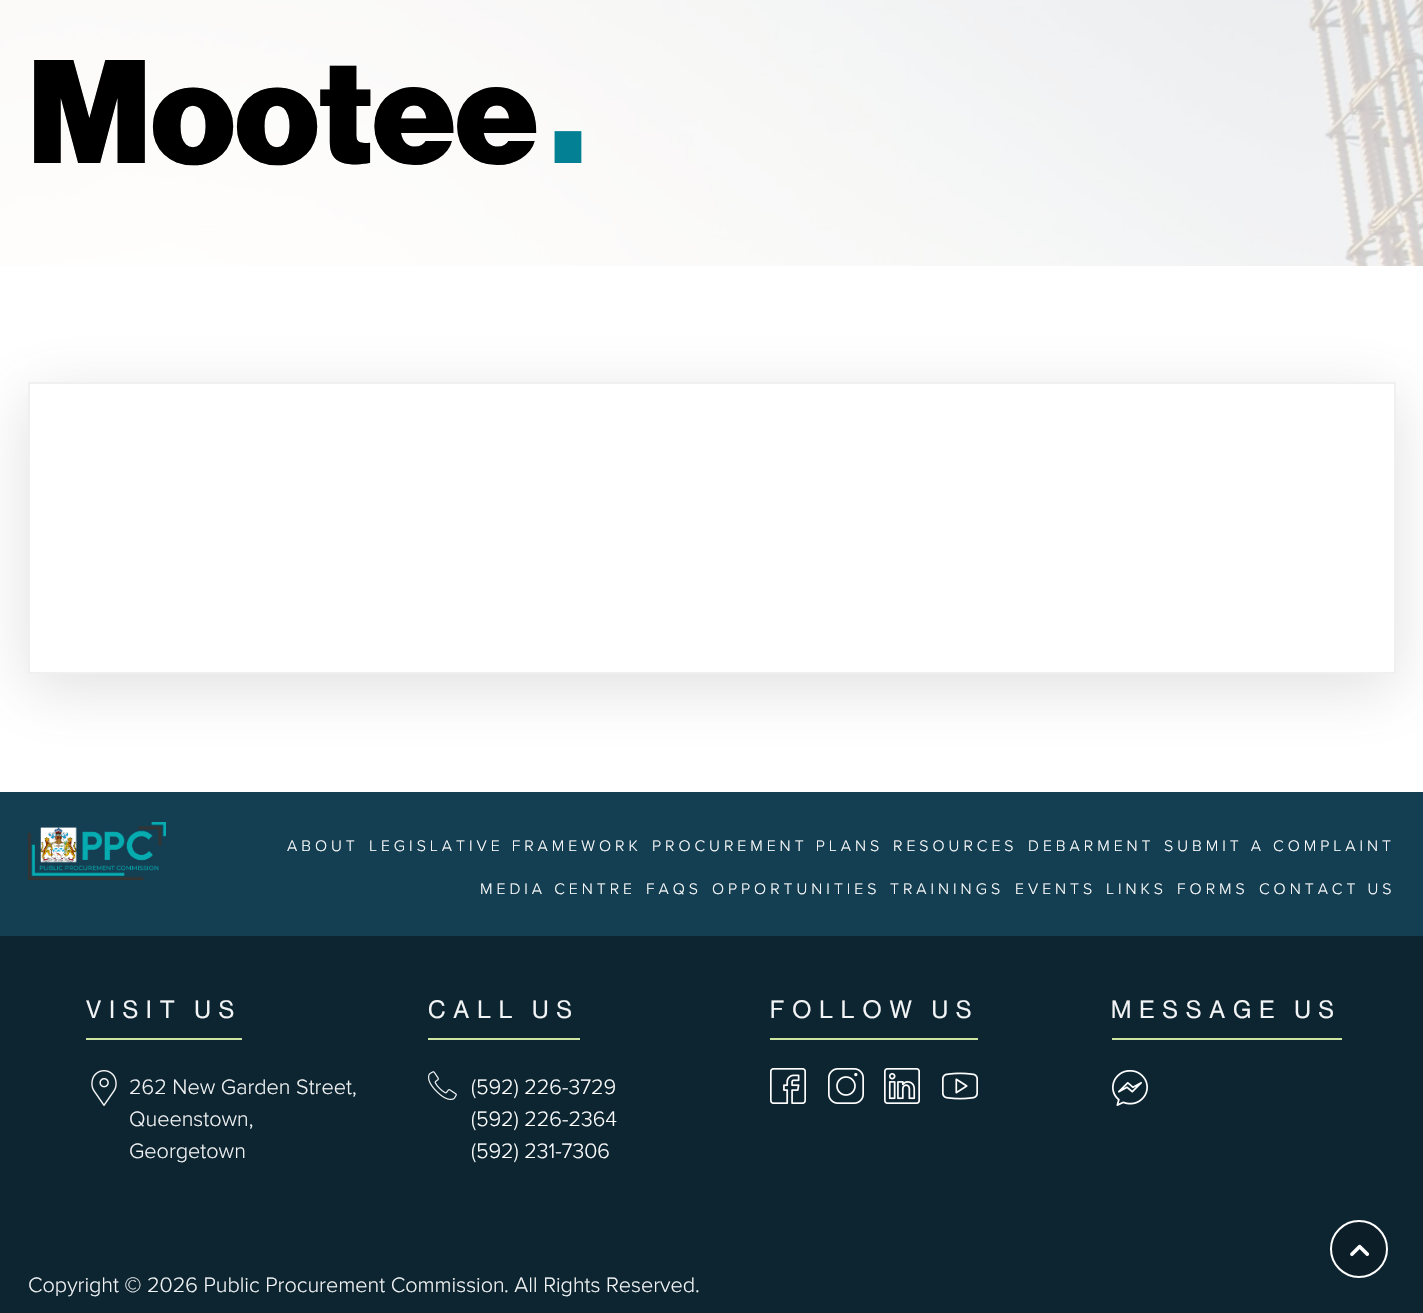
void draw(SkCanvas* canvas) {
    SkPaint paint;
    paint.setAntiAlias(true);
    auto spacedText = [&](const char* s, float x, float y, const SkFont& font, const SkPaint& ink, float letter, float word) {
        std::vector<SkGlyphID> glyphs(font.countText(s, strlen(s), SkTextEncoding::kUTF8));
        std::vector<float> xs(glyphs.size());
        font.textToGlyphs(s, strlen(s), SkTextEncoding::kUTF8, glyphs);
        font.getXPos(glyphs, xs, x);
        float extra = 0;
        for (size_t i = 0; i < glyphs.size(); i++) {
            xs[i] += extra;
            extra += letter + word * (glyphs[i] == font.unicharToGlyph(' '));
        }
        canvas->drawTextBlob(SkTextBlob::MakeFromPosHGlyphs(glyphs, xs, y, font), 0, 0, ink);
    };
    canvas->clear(0xFFFFFFFF);
    canvas->drawImageRect(SkImages::DeferredFromEncodedData(SkData::MakeFromFileName("img1.png")), SkRect::MakeXYWH(0, 0, 1423, 266), SkSamplingOptions());
    SkFont font1(fontMgr->matchFamilyStyle("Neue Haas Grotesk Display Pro", SkFontStyle(900, SkFontStyle::kNormal_Width, SkFontStyle::kUpright_Slant)), 144);
    font1.setSubpixel(true);
    paint.setColor(0xFF000000);
    canvas->drawString("Mootee", 28, 163, font1, paint);
    SkFont font2(fontMgr->matchFamilyStyle("Raleway", SkFontStyle(900, SkFontStyle::kNormal_Width, SkFontStyle::kUpright_Slant)), 173);
    font2.setSubpixel(true);
    paint.setColor(0xFF048095);
    canvas->drawString(".", 546, 163, font2, paint);
    canvas->save();
    canvas->clipPath(SkPathBuilder(SkPathFillType::kEvenOdd).moveTo(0, 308).lineTo(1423, 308).lineTo(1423, 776).lineTo(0, 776).close().moveTo(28, 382).lineTo(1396, 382).lineTo(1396, 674).lineTo(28, 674).close().detach(), true);
    paint.setColor(0x3364646F);
    paint.setMaskFilter(SkMaskFilter::MakeBlur(kNormal_SkBlurStyle, 29));
    canvas->drawRect(SkRect::MakeXYWH(28, 396, 1368, 292), paint);
    paint.setMaskFilter(nullptr);
    canvas->restore();
    paint.setStyle(SkPaint::kStroke_Style);
    paint.setStrokeWidth(2);
    paint.setColor(0xFFF0F0F0);
    canvas->drawRect(SkRect::MakeXYWH(29, 383, 1366, 290), paint);
    paint.setStyle(SkPaint::kFill_Style);
    paint.setColor(0xFF0C2531);
    canvas->drawRect(SkRect::MakeXYWH(0, 936, 1423, 377), paint);
    paint.setColor(0xFF143E52);
    canvas->drawRect(SkRect::MakeXYWH(0, 792, 1423, 144), paint);
    canvas->drawImageRect(SkImages::DeferredFromEncodedData(SkData::MakeFromFileName("img2.png")), SkRect::MakeXYWH(28, 822, 138, 58), SkSamplingOptions());
    SkFont font3(fontMgr->matchFamilyStyle("Proxima Nova", SkFontStyle(300, SkFontStyle::kNormal_Width, SkFontStyle::kUpright_Slant)), 15.8f);
    font3.setSubpixel(true);
    paint.setColor(0xFFFFFFFF);
    spacedText("ABOUT", 287, 851, font3, paint, 4, 0);
    spacedText("LEGISLATIVE FRAMEWORK", 369, 851, font3, paint, 4, 0);
    spacedText("PROCUREMENT PLANS", 652, 851, font3, paint, 4, 0);
    spacedText("RESOURCES", 893, 851, font3, paint, 4, 0);
    spacedText("DEBARMENT", 1028, 851, font3, paint, 4, 0);
    spacedText("SUBMIT A COMPLAINT", 1164, 851, font3, paint, 4, 0);
    spacedText("MEDIA CENTRE", 480, 894, font3, paint, 4, 0);
    spacedText("FAQS", 646, 894, font3, paint, 4, 0);
    spacedText("OPPORTUNITIES", 712, 894, font3, paint, 4, 0);
    spacedText("TRAININGS", 890, 894, font3, paint, 4, 0);
    spacedText("EVENTS", 1015, 894, font3, paint, 4, 0);
    spacedText("LINKS", 1106, 894, font3, paint, 4, 0);
    spacedText("FORMS", 1177, 894, font3, paint, 4, 0);
    spacedText("CONTACT US", 1259, 894, font3, paint, 4, 0);
    paint.setColor(0xFFCEE6A3);
    canvas->drawRect(SkRect::MakeXYWH(86, 1038, 156, 2), paint);
    SkFont font4(fontMgr->matchFamilyStyle("Neue Haas Grotesk Display Pro", SkFontStyle(500, SkFontStyle::kNormal_Width, SkFontStyle::kUpright_Slant)), 24.5f);
    font4.setSubpixel(true);
    paint.setColor(0xFFF3F4F5);
    spacedText("VISIT US", 86, 1018, font4, paint, 8, 0);
    canvas->drawImageRect(SkImages::DeferredFromEncodedData(SkData::MakeFromFileName("img3.png")), SkRect::MakeXYWH(91, 1070, 26, 36), SkSamplingOptions());
    SkFont font5(fontMgr->matchFamilyStyle("Proxima Nova", SkFontStyle(300, SkFontStyle::kNormal_Width, SkFontStyle::kUpright_Slant)), 21.6f);
    font5.setSubpixel(true);
    canvas->drawString("262 New Garden Street,", 129, 1094, font5, paint);
    canvas->drawString("Queenstown,", 129, 1126, font5, paint);
    canvas->drawString("Georgetown", 129, 1158, font5, paint);
    paint.setColor(0xFFCEE6A3);
    canvas->drawRect(SkRect::MakeXYWH(428, 1038, 152, 2), paint);
    paint.setColor(0xFFF3F4F5);
    spacedText("CALL US", 428, 1018, font4, paint, 8, 0);
    canvas->drawImageRect(SkImages::DeferredFromEncodedData(SkData::MakeFromFileName("img4.png")), SkRect::MakeXYWH(428, 1071, 29, 29), SkSamplingOptions());
    paint.setColor(0xFFFFFFFF);
    canvas->drawString("(592) 226-3729", 471, 1094, font5, paint);
    canvas->drawString("(592) 226-2364", 471, 1126, font5, paint);
    canvas->drawString("(592) 231-7306", 471, 1158, font5, paint);
    paint.setColor(0xFFCEE6A3);
    canvas->drawRect(SkRect::MakeXYWH(770, 1038, 208, 2), paint);
    paint.setColor(0xFFF3F4F5);
    spacedText("FOLLOW US", 770, 1018, font4, paint, 8, 0);
    canvas->drawImageRect(SkImages::DeferredFromEncodedData(SkData::MakeFromFileName("img5.png")), SkRect::MakeXYWH(770, 1068, 36, 36), SkSamplingOptions());
    canvas->drawImageRect(SkImages::DeferredFromEncodedData(SkData::MakeFromFileName("img6.png")), SkRect::MakeXYWH(828, 1068, 36, 36), SkSamplingOptions());
    canvas->drawImageRect(SkImages::DeferredFromEncodedData(SkData::MakeFromFileName("img7.png")), SkRect::MakeXYWH(884, 1068, 36, 36), SkSamplingOptions());
    canvas->drawImageRect(SkImages::DeferredFromEncodedData(SkData::MakeFromFileName("img8.png")), SkRect::MakeXYWH(942, 1072, 36, 28), SkSamplingOptions());
    paint.setColor(0xFFCEE6A3);
    canvas->drawRect(SkRect::MakeXYWH(1112, 1038, 230, 2), paint);
    paint.setColor(0xFFF3F4F5);
    spacedText("MESSAGE US", 1111, 1018, font4, paint, 8, 0);
    canvas->drawImageRect(SkImages::DeferredFromEncodedData(SkData::MakeFromFileName("img9.png")), SkRect::MakeXYWH(1112, 1070, 36, 36), SkSamplingOptions());
    canvas->drawString("Copyright © 2026 Public Procurement Commission", 28, 1292, font5, paint);
    canvas->drawString(". All Rights Reserved.", 504, 1292, font5, paint);
    paint.setColor(0xFF0C1E27);
    canvas->drawCircle(1359, 1249, 28, paint);
    paint.setStyle(SkPaint::kStroke_Style);
    paint.setColor(0xFFFFFFFF);
    canvas->drawCircle(1359, 1249, 28, paint);
    canvas->drawImageRect(SkImages::DeferredFromEncodedData(SkData::MakeFromFileName("img10.png")), SkRect::MakeXYWH(1350, 1244, 19, 13), SkSamplingOptions());
}
